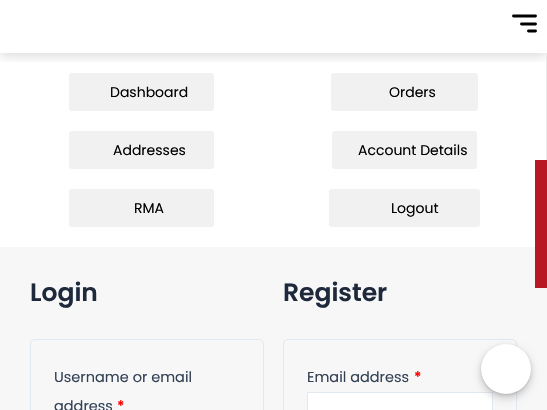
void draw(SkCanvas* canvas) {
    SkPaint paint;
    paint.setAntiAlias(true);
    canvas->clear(0xFFFFFFFF);
    canvas->save();
    canvas->clipRect(SkRect::MakeXYWH(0, 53, 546, 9));
    paint.setColor(0x29000000);
    paint.setMaskFilter(SkMaskFilter::MakeBlur(kNormal_SkBlurStyle, 6));
    canvas->drawRect(SkRect::MakeXYWH(0, 2, 547, 53), paint);
    paint.setMaskFilter(nullptr);
    canvas->restore();
    paint.setStyle(SkPaint::kStroke_Style);
    paint.setStrokeWidth(2.9f);
    paint.setStrokeCap(SkPaint::kRound_Cap);
    paint.setColor(0xFF000000);
    canvas->drawPath(SkPathBuilder().moveTo(513.5f, 16).lineTo(535.5f, 16).moveTo(521.5f, 24).lineTo(535.5f, 24).moveTo(528.5f, 31).lineTo(535.5f, 31).detach(), paint);
    paint.setStyle(SkPaint::kFill_Style);
    paint.setColor(0xFFF7F7F7);
    canvas->drawRect(SkRect::MakeXYWH(0, 247, 547, 163), paint);
    paint.setColor(0xFFB71823);
    canvas->drawRect(SkRect::MakeXYWH(535, 160, 12, 128), paint);
    paint.setColor(0xFFE9E9E9);
    canvas->drawRect(SkRect::MakeXYWH(546, 53, 1, 107), paint);
    paint.setColor(0xFFF1F1F1);
    canvas->drawRoundRect(SkRect::MakeXYWH(69, 73, 145, 38), 3, 3, paint);
    SkFont font1(fontMgr->matchFamilyStyle("Poppins", SkFontStyle::Normal()), 14);
    font1.setSubpixel(true);
    paint.setColor(0xFF000000);
    canvas->drawString("Dashboard", 110, 97, font1, paint);
    paint.setColor(0xFFF1F1F1);
    canvas->drawRoundRect(SkRect::MakeXYWH(69, 131, 145, 38), 3, 3, paint);
    paint.setColor(0xFF000000);
    canvas->drawString("Addresses", 113, 155, font1, paint);
    paint.setColor(0xFFF1F1F1);
    canvas->drawRoundRect(SkRect::MakeXYWH(69, 189, 145, 38), 3, 3, paint);
    paint.setColor(0xFF000000);
    canvas->drawString("RMA", 134, 213, font1, paint);
    paint.setColor(0xFFF1F1F1);
    canvas->drawRoundRect(SkRect::MakeXYWH(331, 73, 147, 38), 3, 3, paint);
    paint.setColor(0xFF000000);
    canvas->drawString("Orders", 389, 97, font1, paint);
    paint.setColor(0xFFF1F1F1);
    canvas->drawRoundRect(SkRect::MakeXYWH(332, 131, 145, 38), 3, 3, paint);
    paint.setColor(0xFF000000);
    canvas->drawString("Account Details", 358, 155, font1, paint);
    paint.setColor(0xFFF1F1F1);
    canvas->drawRoundRect(SkRect::MakeXYWH(329, 189, 151, 38), 3, 3, paint);
    paint.setColor(0xFF000000);
    canvas->drawString("Logout", 391, 213, font1, paint);
    SkFont font2(fontMgr->matchFamilyStyle("Poppins", SkFontStyle(600, SkFontStyle::kNormal_Width, SkFontStyle::kUpright_Slant)), 25);
    font2.setSubpixel(true);
    paint.setColor(0xFF1E293B);
    canvas->drawString("Login", 30, 301, font2, paint);
    paint.setStyle(SkPaint::kStroke_Style);
    paint.setStrokeWidth(1);
    paint.setStrokeCap(SkPaint::kButt_Cap);
    paint.setColor(0xFFE2E8F0);
    canvas->drawRoundRect(SkRect::MakeXYWH(30.5f, 339.5f, 233, 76), 4.5f, 4.5f, paint);
    SkFont font3(fontMgr->matchFamilyStyle("Poppins", SkFontStyle::Normal()), 14.5f);
    font3.setSubpixel(true);
    paint.setStyle(SkPaint::kFill_Style);
    paint.setColor(0xFF334155);
    canvas->drawString("Username or email", 54, 382, font3, paint);
    canvas->drawString("address", 54, 411, font3, paint);
    SkFont font4(fontMgr->matchFamilyStyle("Poppins", SkFontStyle(600, SkFontStyle::kNormal_Width, SkFontStyle::kUpright_Slant)), 14.5f);
    font4.setSubpixel(true);
    paint.setColor(0xFFFF0000);
    canvas->drawString("*", 117, 411, font4, paint);
    paint.setColor(0xFF1E293B);
    canvas->drawString("Register", 283, 301, font2, paint);
    paint.setStyle(SkPaint::kStroke_Style);
    paint.setColor(0xFFE2E8F0);
    canvas->drawRoundRect(SkRect::MakeXYWH(283.5f, 339.5f, 233, 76), 4.5f, 4.5f, paint);
    paint.setStyle(SkPaint::kFill_Style);
    paint.setColor(0xFF334155);
    canvas->drawString("Email address", 307, 382, font3, paint);
    paint.setColor(0xFFFF0000);
    canvas->drawString("*", 414, 382, font4, paint);
    paint.setColor(0xFFFFFFFF);
    canvas->drawRect(SkRect::MakeXYWH(307.5f, 392.5f, 185, 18), paint);
    paint.setStyle(SkPaint::kStroke_Style);
    paint.setColor(0xFFE2E8F0);
    canvas->drawRect(SkRect::MakeXYWH(307.5f, 392.5f, 185, 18), paint);
    paint.setStyle(SkPaint::kFill_Style);
    paint.setColor(0x33000000);
    paint.setMaskFilter(SkMaskFilter::MakeBlur(kNormal_SkBlurStyle, 4));
    canvas->drawRoundRect(SkRect::MakeXYWH(481, 348, 50, 50), 25, 25, paint);
    paint.setMaskFilter(nullptr);
    paint.setColor(0x1A000000);
    paint.setMaskFilter(SkMaskFilter::MakeBlur(kNormal_SkBlurStyle, 1));
    canvas->drawRoundRect(SkRect::MakeXYWH(482, 346, 48, 48), 24, 24, paint);
    paint.setMaskFilter(nullptr);
    paint.setMaskFilter(SkMaskFilter::MakeBlur(kNormal_SkBlurStyle, 1.5f));
    canvas->drawRoundRect(SkRect::MakeXYWH(481, 345, 50, 50), 25, 25, paint);
    paint.setMaskFilter(nullptr);
    paint.setColor(0xFFFFFFFF);
    canvas->drawCircle(506, 369, 25, paint);
}
